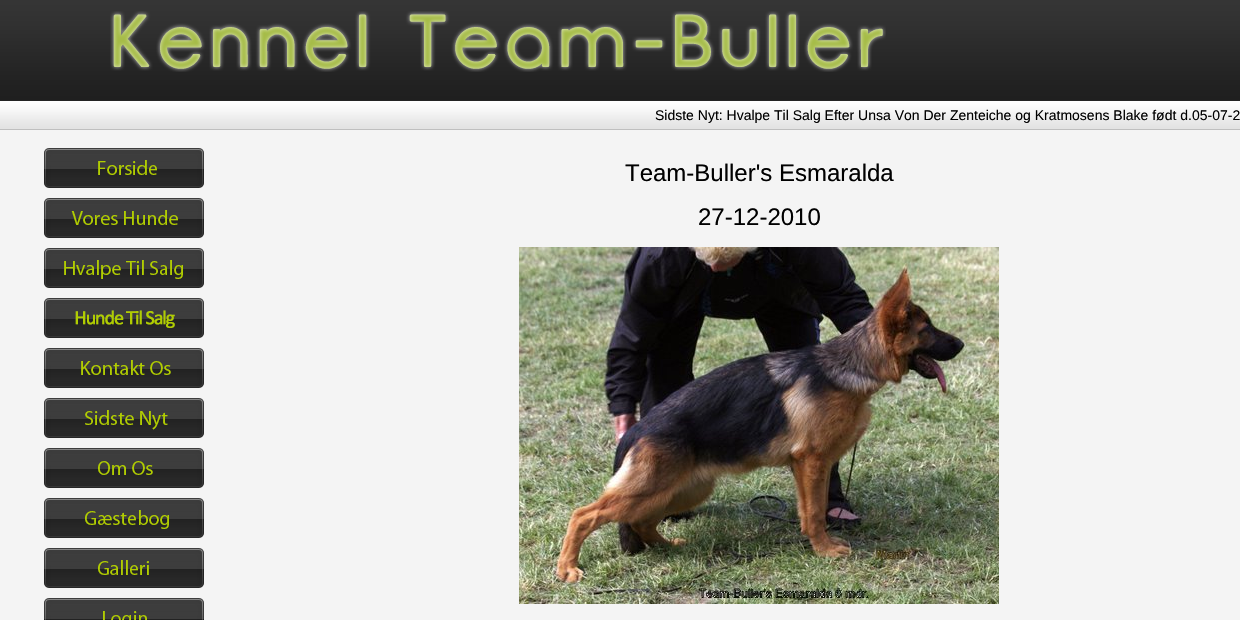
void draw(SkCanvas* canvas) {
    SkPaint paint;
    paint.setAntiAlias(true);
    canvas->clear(0xFFF4F4F4);
    canvas->drawImageRect(SkImages::DeferredFromEncodedData(SkData::MakeFromFileName("img1.png")), SkRect::MakeXYWH(0, 0, 1240, 100), SkSamplingOptions());
    paint.setColor(0xFF252525);
    canvas->drawRect(SkRect::MakeXYWH(0, 100, 1240, 1), paint);
    canvas->drawImageRect(SkImages::DeferredFromEncodedData(SkData::MakeFromFileName("img2.png")), SkRect::MakeXYWH(110, 11, 776, 61), SkSamplingOptions());
    canvas->drawImageRect(SkImages::DeferredFromEncodedData(SkData::MakeFromFileName("img3.png")), SkRect::MakeXYWH(0, 101, 1240, 28), SkSamplingOptions());
    paint.setColor(0xFFBFBFBF);
    canvas->drawRect(SkRect::MakeXYWH(0, 129, 1240, 1), paint);
    SkFont font1(fontMgr->matchFamilyStyle("Liberation Sans", SkFontStyle::Normal()), 14);
    font1.setSubpixel(true);
    paint.setColor(0xFF000000);
    canvas->drawString("Sidste Nyt: Hvalpe Til Salg Efter Unsa Von Der Zenteiche og Kratmosens Blake født d.05-07-2", 655, 120, font1, paint);
    canvas->drawImageRect(SkImages::DeferredFromEncodedData(SkData::MakeFromFileName("img4.png")), SkRect::MakeXYWH(44, 148, 160, 40), SkSamplingOptions());
    canvas->drawImageRect(SkImages::DeferredFromEncodedData(SkData::MakeFromFileName("img5.png")), SkRect::MakeXYWH(44, 198, 160, 40), SkSamplingOptions());
    canvas->drawImageRect(SkImages::DeferredFromEncodedData(SkData::MakeFromFileName("img6.png")), SkRect::MakeXYWH(44, 248, 160, 40), SkSamplingOptions());
    canvas->drawImageRect(SkImages::DeferredFromEncodedData(SkData::MakeFromFileName("img7.png")), SkRect::MakeXYWH(44, 298, 160, 40), SkSamplingOptions());
    canvas->drawImageRect(SkImages::DeferredFromEncodedData(SkData::MakeFromFileName("img8.png")), SkRect::MakeXYWH(44, 348, 160, 40), SkSamplingOptions());
    canvas->drawImageRect(SkImages::DeferredFromEncodedData(SkData::MakeFromFileName("img9.png")), SkRect::MakeXYWH(44, 398, 160, 40), SkSamplingOptions());
    canvas->drawImageRect(SkImages::DeferredFromEncodedData(SkData::MakeFromFileName("img10.png")), SkRect::MakeXYWH(44, 448, 160, 40), SkSamplingOptions());
    canvas->drawImageRect(SkImages::DeferredFromEncodedData(SkData::MakeFromFileName("img11.png")), SkRect::MakeXYWH(44, 498, 160, 40), SkSamplingOptions());
    canvas->drawImageRect(SkImages::DeferredFromEncodedData(SkData::MakeFromFileName("img12.png")), SkRect::MakeXYWH(44, 548, 160, 40), SkSamplingOptions());
    canvas->drawImageRect(SkImages::DeferredFromEncodedData(SkData::MakeFromFileName("img13.png")), SkRect::MakeXYWH(44, 598, 160, 22), SkSamplingOptions());
    SkFont font2(fontMgr->matchFamilyStyle("Liberation Sans", SkFontStyle::Normal()), 24);
    font2.setSubpixel(true);
    canvas->drawString("Team-Buller's Esmaralda", 625, 181, font2, paint);
    canvas->drawString("27-12-2010", 698, 225, font2, paint);
    canvas->drawImageRect(SkImages::DeferredFromEncodedData(SkData::MakeFromFileName("img14.png")), SkRect::MakeXYWH(519, 247, 480, 357), SkSamplingOptions());
}
